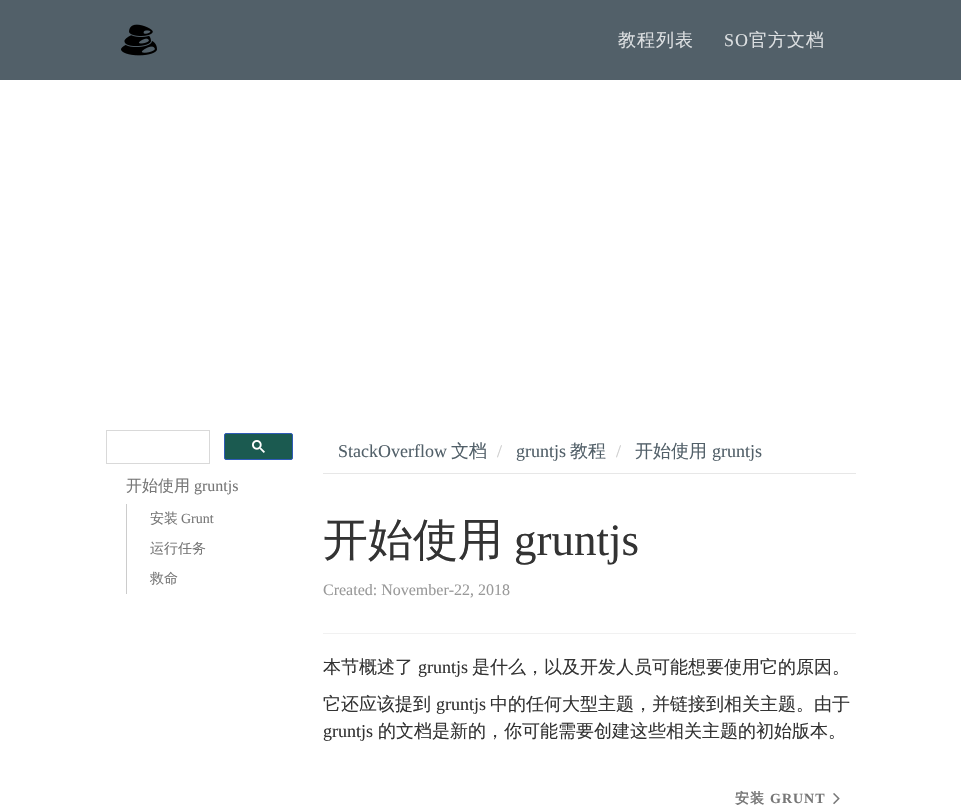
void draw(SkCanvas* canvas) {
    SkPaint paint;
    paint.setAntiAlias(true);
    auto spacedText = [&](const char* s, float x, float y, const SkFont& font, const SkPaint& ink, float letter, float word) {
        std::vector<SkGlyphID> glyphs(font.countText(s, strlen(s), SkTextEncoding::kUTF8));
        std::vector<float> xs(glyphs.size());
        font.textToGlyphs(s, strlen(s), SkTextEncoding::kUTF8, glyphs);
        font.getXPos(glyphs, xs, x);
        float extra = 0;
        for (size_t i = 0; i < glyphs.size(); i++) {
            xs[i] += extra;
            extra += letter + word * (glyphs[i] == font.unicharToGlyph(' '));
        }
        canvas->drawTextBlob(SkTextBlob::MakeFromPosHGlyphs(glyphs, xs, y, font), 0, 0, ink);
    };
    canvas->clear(0xFFFFFFFF);
    paint.setColor(0xFF526069);
    canvas->drawRect(SkRect::MakeXYWH(0, 0, 961, 80), paint);
    canvas->drawImageRect(SkImages::DeferredFromEncodedData(SkData::MakeFromFileName("img1.png")), SkRect::MakeXYWH(121, 24, 36, 32), SkSamplingOptions());
    SkFont font1(fontMgr->matchFamilyStyle("WenQuanYi Zen Hei", SkFontStyle(500, SkFontStyle::kNormal_Width, SkFontStyle::kUpright_Slant)), 18);
    font1.setSubpixel(true);
    paint.setColor(0xFFDCDFE1);
    spacedText("教程列表", 618, 46, font1, paint, 1, 0);
    SkFont font2(fontMgr->matchFamilyStyle("Liberation Serif", SkFontStyle::Normal()), 18);
    font2.setSubpixel(true);
    spacedText("SO", 724, 46, font2, paint, 1, 0);
    spacedText("官方文档", 749, 46, font1, paint, 1, 0);
    paint.setStyle(SkPaint::kStroke_Style);
    paint.setStrokeWidth(1);
    paint.setColor(0xFFD9D9D9);
    canvas->drawRect(SkRect::MakeXYWH(106.5f, 430.5f, 103, 33), paint);
    paint.setStyle(SkPaint::kFill_Style);
    paint.setColor(0xFF1B5A50);
    canvas->drawRoundRect(SkRect::MakeXYWH(224.5f, 433.5f, 68, 26), 1.5f, 1.5f, paint);
    paint.setStyle(SkPaint::kStroke_Style);
    paint.setColor(0xFF2F5BB7);
    canvas->drawRoundRect(SkRect::MakeXYWH(224.5f, 433.5f, 68, 26), 1.5f, 1.5f, paint);
    canvas->drawImageRect(SkImages::DeferredFromEncodedData(SkData::MakeFromFileName("img2.png")), SkRect::MakeXYWH(252, 440, 13, 13), SkSamplingOptions());
    SkFont font3(fontMgr->matchFamilyStyle("WenQuanYi Zen Hei", SkFontStyle(500, SkFontStyle::kNormal_Width, SkFontStyle::kUpright_Slant)), 16);
    font3.setSubpixel(true);
    paint.setStyle(SkPaint::kFill_Style);
    paint.setColor(0xFF777777);
    canvas->drawString("开始使用", 126, 491, font3, paint);
    SkFont font4(fontMgr->matchFamilyStyle("Liberation Serif", SkFontStyle::Normal()), 16);
    font4.setSubpixel(true);
    canvas->drawString("gruntjs", 194, 491, font4, paint);
    paint.setColor(0xFFCCCCCC);
    canvas->drawRect(SkRect::MakeXYWH(126, 504, 1, 90), paint);
    SkFont font5(fontMgr->matchFamilyStyle("WenQuanYi Zen Hei", SkFontStyle(500, SkFontStyle::kNormal_Width, SkFontStyle::kUpright_Slant)), 14);
    font5.setSubpixel(true);
    paint.setColor(0xFF777777);
    canvas->drawString("安装", 150, 523, font5, paint);
    SkFont font6(fontMgr->matchFamilyStyle("Liberation Serif", SkFontStyle::Normal()), 14);
    font6.setSubpixel(true);
    canvas->drawString("Grunt", 181, 523, font6, paint);
    canvas->drawString("运行任务", 150, 553, font5, paint);
    canvas->drawString("救命", 150, 583, font5, paint);
    paint.setColor(0xFFE7E7E7);
    canvas->drawRect(SkRect::MakeXYWH(323, 473, 533, 1), paint);
    paint.setColor(0xFF526069);
    canvas->drawString("StackOverflow", 338, 457, font2, paint);
    canvas->drawString("文档", 451, 457, font1, paint);
    paint.setColor(0xFFCCCCCC);
    canvas->drawString("/", 497, 457, font2, paint);
    paint.setColor(0xFF526069);
    canvas->drawString("gruntjs", 516, 457, font2, paint);
    canvas->drawString("教程", 570, 457, font1, paint);
    paint.setColor(0xFFCCCCCC);
    canvas->drawString("/", 616, 457, font2, paint);
    paint.setColor(0xFF526069);
    canvas->drawString("开始使用", 635, 457, font1, paint);
    canvas->drawString("gruntjs", 712, 457, font2, paint);
    paint.setColor(0xFFF1F1F1);
    canvas->drawRect(SkRect::MakeXYWH(323, 633, 533, 1), paint);
    SkFont font7(fontMgr->matchFamilyStyle("WenQuanYi Zen Hei", SkFontStyle(500, SkFontStyle::kNormal_Width, SkFontStyle::kUpright_Slant)), 45);
    font7.setSubpixel(true);
    paint.setColor(0xFF333333);
    canvas->drawString("开始使用", 323, 555, font7, paint);
    SkFont font8(fontMgr->matchFamilyStyle("Liberation Serif", SkFontStyle::Normal()), 45);
    font8.setSubpixel(true);
    canvas->drawString("gruntjs", 514, 555, font8, paint);
    paint.setColor(0xFF999999);
    canvas->drawString("Created: November-22, 2018", 323, 595, font4, paint);
    paint.setColor(0xFF333333);
    canvas->drawString("本节概述了", 323, 673, font1, paint);
    canvas->drawString("gruntjs", 418, 673, font2, paint);
    canvas->drawString("是什么，以及开发人员可能想要使用它的原因。", 472, 673, font1, paint);
    canvas->drawString("它还应该提到", 323, 710, font1, paint);
    canvas->drawString("gruntjs", 436, 710, font2, paint);
    canvas->drawString("中的任何大型主题，并链接到相关主题。由于", 490, 710, font1, paint);
    canvas->drawString("gruntjs", 323, 737, font2, paint);
    canvas->drawString("的文档是新的，你可能需要创建这些相关主题的初始版本。", 378, 737, font1, paint);
    SkFont font9(fontMgr->matchFamilyStyle("WenQuanYi Zen Hei", SkFontStyle::Bold()), 14);
    font9.setSubpixel(true);
    paint.setColor(0xFF777777);
    spacedText("安装", 735, 803, font9, paint, 1, 0);
    SkFont font10(fontMgr->matchFamilyStyle("Liberation Serif", SkFontStyle::Bold()), 14);
    font10.setSubpixel(true);
    spacedText("GRUNT", 770, 803, font10, paint, 1, 0);
    canvas->drawImageRect(SkImages::DeferredFromEncodedData(SkData::MakeFromFileName("img3.png")), SkRect::MakeXYWH(833, 793, 7, 12), SkSamplingOptions());
}
